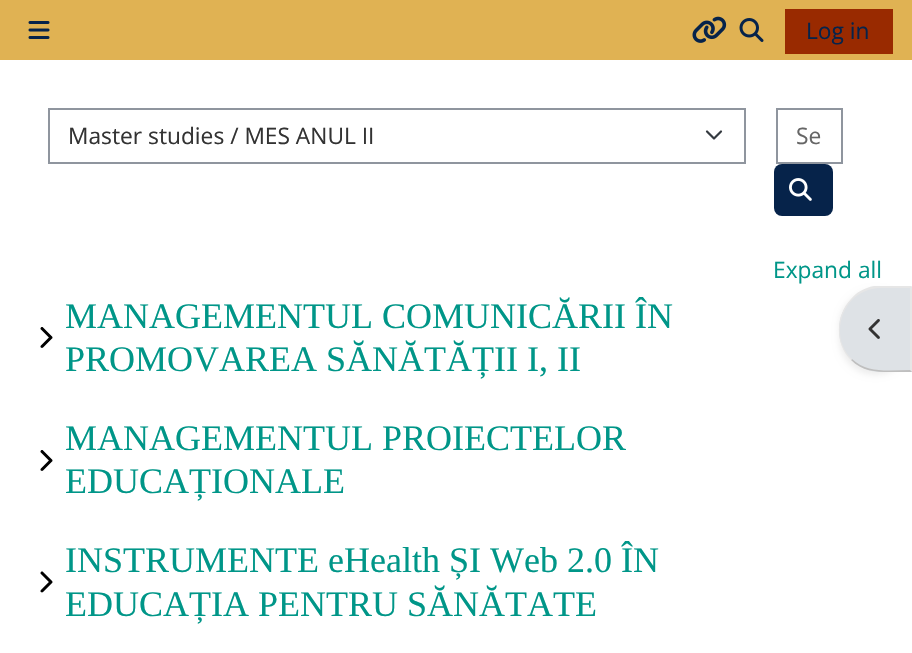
void draw(SkCanvas* canvas) {
    SkPaint paint;
    paint.setAntiAlias(true);
    canvas->clear(0xFFFFFFFF);
    paint.setColor(0xFFE0B253);
    canvas->drawRect(SkRect::MakeXYWH(0, 0, 912, 60), paint);
    canvas->drawImageRect(SkImages::DeferredFromEncodedData(SkData::MakeFromFileName("img1.png")), SkRect::MakeXYWH(28, 21, 22, 18), SkSamplingOptions());
    canvas->drawImageRect(SkImages::DeferredFromEncodedData(SkData::MakeFromFileName("img2.png")), SkRect::MakeXYWH(692, 16, 35, 27), SkSamplingOptions());
    canvas->drawImageRect(SkImages::DeferredFromEncodedData(SkData::MakeFromFileName("img3.png")), SkRect::MakeXYWH(739, 18, 25, 24), SkSamplingOptions());
    paint.setColor(0xFF992A00);
    canvas->drawRect(SkRect::MakeXYWH(785, 9, 108, 45), paint);
    SkFont font1(fontMgr->matchFamilyStyle("Open Sans", SkFontStyle::Normal()), 22.75f);
    font1.setSubpixel(true);
    paint.setColor(0xFF06234A);
    canvas->drawString("Log in", 806, 39, font1, paint);
    paint.setStyle(SkPaint::kStroke_Style);
    paint.setStrokeWidth(2.2f);
    paint.setStrokeCap(SkPaint::kRound_Cap);
    paint.setStrokeJoin(SkPaint::kRound_Join);
    paint.setColor(0xFF343A40);
    canvas->drawPath(SkPathBuilder().moveTo(707, 131.5f).lineTo(714, 138.5f).lineTo(721, 131.5f).detach(), paint);
    paint.setStrokeWidth(2);
    paint.setStrokeCap(SkPaint::kButt_Cap);
    paint.setStrokeJoin(SkPaint::kMiter_Join);
    paint.setColor(0xFF8F959E);
    canvas->drawRect(SkRect::MakeXYWH(49, 109, 696, 54), paint);
    paint.setStyle(SkPaint::kFill_Style);
    paint.setColor(0xFF333333);
    canvas->drawString("Master studies / MES ANUL II", 68, 144, font1, paint);
    paint.setStyle(SkPaint::kStroke_Style);
    paint.setColor(0xFF8F959E);
    canvas->drawRect(SkRect::MakeXYWH(777, 109, 65, 54), paint);
    paint.setStyle(SkPaint::kFill_Style);
    paint.setColor(0xFF666666);
    canvas->drawString("Se", 796, 144, font1, paint);
    paint.setColor(0xFF06234A);
    canvas->drawRoundRect(SkRect::MakeXYWH(774, 164, 59, 52), 8, 8, paint);
    canvas->drawImageRect(SkImages::DeferredFromEncodedData(SkData::MakeFromFileName("img4.png")), SkRect::MakeXYWH(789, 178, 23, 23), SkSamplingOptions());
    paint.setColor(0xFF009688);
    canvas->drawString("Expand all", 773, 278, font1, paint);
    canvas->drawImageRect(SkImages::DeferredFromEncodedData(SkData::MakeFromFileName("img5.png")), SkRect::MakeXYWH(40, 327, 13, 21), SkSamplingOptions());
    SkFont font2(fontMgr->matchFamilyStyle("Liberation Serif", SkFontStyle::Normal()), 36);
    font2.setSubpixel(true);
    canvas->drawString("MANAGEMENTUL COMUNICĂRII ÎN", 65, 328, font2, paint);
    canvas->drawString("PROMOVAREA SĂNĂTĂȚII I, II", 65, 371, font2, paint);
    canvas->drawImageRect(SkImages::DeferredFromEncodedData(SkData::MakeFromFileName("img5.png")), SkRect::MakeXYWH(40, 450, 13, 21), SkSamplingOptions());
    canvas->drawString("MANAGEMENTUL PROIECTELOR", 65, 450, font2, paint);
    canvas->drawString("EDUCAȚIONALE", 65, 493, font2, paint);
    canvas->drawImageRect(SkImages::DeferredFromEncodedData(SkData::MakeFromFileName("img6.png")), SkRect::MakeXYWH(40, 571, 13, 22), SkSamplingOptions());
    canvas->drawString("INSTRUMENTE eHealth ȘI Web 2.0 ÎN", 65, 572, font2, paint);
    canvas->drawString("EDUCAȚIA PENTRU SĂNĂTATE", 65, 616, font2, paint);
    paint.setColor(0x12000000);
    paint.setMaskFilter(SkMaskFilter::MakeBlur(kNormal_SkBlurStyle, 3));
    canvas->drawRoundRect(SkRect::MakeXYWH(839, 290, 73, 85), 42, 42, paint);
    paint.setMaskFilter(nullptr);
    paint.setColor(0xFFDEE2E6);
    canvas->drawPath(SkPathBuilder().moveTo(881, 287).lineTo(912, 287).lineTo(912, 372).lineTo(881, 372).cubicTo(858, 372, 839, 353, 839, 330).lineTo(839, 329).cubicTo(839, 306, 858, 287, 881, 287).close().detach(), paint);
    paint.setColor(0xFFE6E6E6);
    canvas->drawPath(SkPathBuilder().moveTo(881, 288).cubicTo(869, 288, 859, 293, 852, 300).lineTo(851, 299).cubicTo(857, 292, 864, 288, 874, 286).lineTo(912, 286).lineTo(910, 288).close().detach(), paint);
    canvas->drawPath(SkPathBuilder().moveTo(912, 286).lineTo(910, 288).lineTo(910, 370).lineTo(912, 372).close().detach(), paint);
    paint.setColor(0xFFBFBFBF);
    canvas->drawPath(SkPathBuilder().moveTo(912, 372).lineTo(890, 372).cubicTo(875, 372, 862, 371, 851, 360).lineTo(852, 359).cubicTo(868, 374, 890, 370, 910, 370).close().detach(), paint);
    paint.setColor(0xFFE6E6E6);
    canvas->drawPath(SkPathBuilder().moveTo(851, 360).cubicTo(834, 343, 836, 315, 851, 299).lineTo(852, 300).cubicTo(837, 316, 835, 343, 852, 359).close().detach(), paint);
    canvas->drawImageRect(SkImages::DeferredFromEncodedData(SkData::MakeFromFileName("img7.png")), SkRect::MakeXYWH(868, 319, 12, 20), SkSamplingOptions());
}
